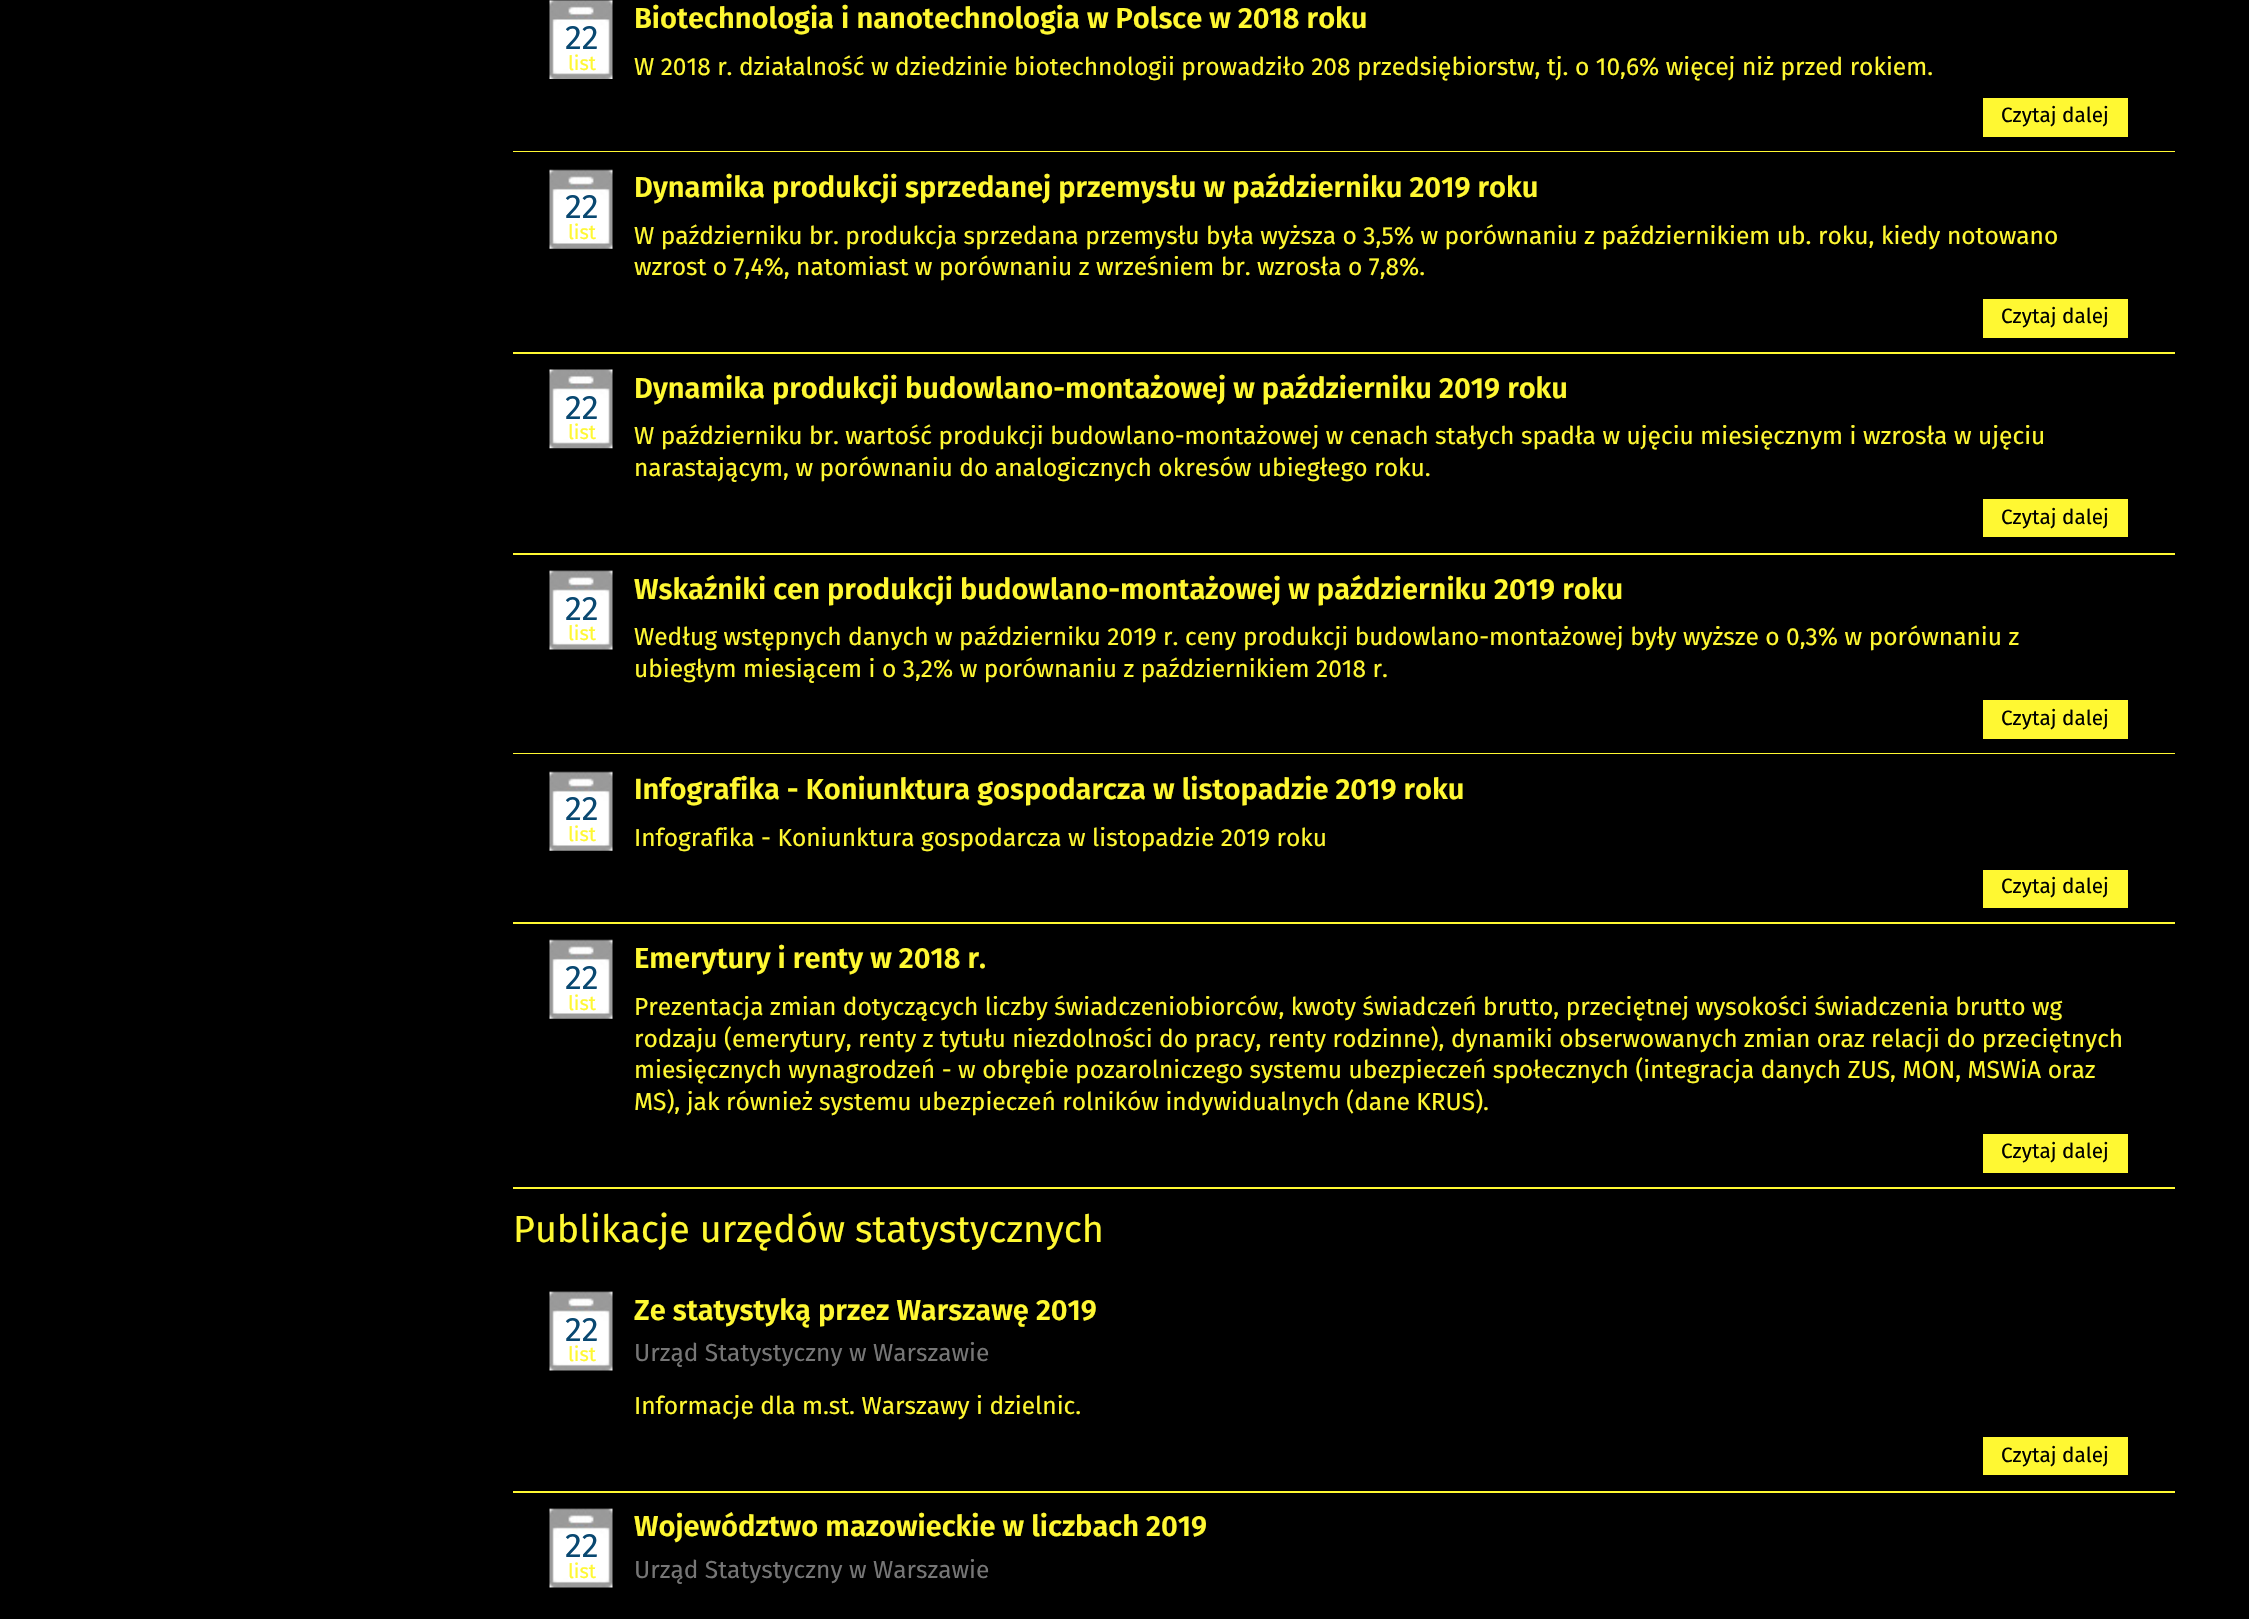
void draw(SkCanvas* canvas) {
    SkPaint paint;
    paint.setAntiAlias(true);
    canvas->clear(0xFF000000);
    paint.setColor(0xFFFFF832);
    canvas->drawRect(SkRect::MakeXYWH(513, 151, 1662, 1), paint);
    canvas->drawImageRect(SkImages::DeferredFromEncodedData(SkData::MakeFromFileName("img1.png")), SkRect::MakeXYWH(549, 0, 64, 79), SkSamplingOptions());
    SkFont font1(fontMgr->matchFamilyStyle("Fira Sans", SkFontStyle::Normal()), 34);
    font1.setSubpixel(true);
    paint.setColor(0xFF094871);
    canvas->drawString("22", 565, 49, font1, paint);
    SkFont font2(fontMgr->matchFamilyStyle("Fira Sans", SkFontStyle::Normal()), 20);
    font2.setSubpixel(true);
    paint.setColor(0xFFFFF832);
    canvas->drawString("list", 568, 70, font2, paint);
    SkFont font3(fontMgr->matchFamilyStyle("Fira Sans", SkFontStyle(600, SkFontStyle::kNormal_Width, SkFontStyle::kUpright_Slant)), 29.05f);
    font3.setSubpixel(true);
    canvas->drawString("Biotechnologia i nanotechnologia w Polsce w 2018 roku", 634, 28, font3, paint);
    SkFont font4(fontMgr->matchFamilyStyle("Fira Sans", SkFontStyle::Normal()), 24.5f);
    font4.setSubpixel(true);
    canvas->drawString("W 2018 r. działalność w dziedzinie biotechnologii prowadziło 208 przedsiębiorstw, tj. o 10,6% więcej niż przed rokiem.", 634, 75, font4, paint);
    canvas->drawRect(SkRect::MakeXYWH(1983, 98, 145, 39), paint);
    SkFont font5(fontMgr->matchFamilyStyle("Fira Sans", SkFontStyle::Normal()), 20.75f);
    font5.setSubpixel(true);
    paint.setColor(0xFF000000);
    canvas->drawString("Czytaj dalej", 2001, 122, font5, paint);
    paint.setColor(0xFFFFF832);
    canvas->drawRect(SkRect::MakeXYWH(513, 352, 1662, 2), paint);
    canvas->drawImageRect(SkImages::DeferredFromEncodedData(SkData::MakeFromFileName("img2.png")), SkRect::MakeXYWH(549, 169, 64, 80), SkSamplingOptions());
    paint.setColor(0xFF094871);
    canvas->drawString("22", 565, 218, font1, paint);
    paint.setColor(0xFFFFF832);
    canvas->drawString("list", 568, 239, font2, paint);
    canvas->drawString("Dynamika produkcji sprzedanej przemysłu w październiku 2019 roku", 634, 197, font3, paint);
    canvas->drawString("W październiku br. produkcja sprzedana przemysłu była wyższa o 3,5% w porównaniu z październikiem ub. roku, kiedy notowano", 634, 244, font4, paint);
    canvas->drawString("wzrost o 7,4%, natomiast w porównaniu z wrześniem br. wzrosła o 7,8%.", 634, 275, font4, paint);
    canvas->drawRect(SkRect::MakeXYWH(1983, 299, 145, 39), paint);
    paint.setColor(0xFF000000);
    canvas->drawString("Czytaj dalej", 2001, 323, font5, paint);
    paint.setColor(0xFFFFF832);
    canvas->drawRect(SkRect::MakeXYWH(513, 553, 1662, 2), paint);
    canvas->drawImageRect(SkImages::DeferredFromEncodedData(SkData::MakeFromFileName("img3.png")), SkRect::MakeXYWH(549, 369, 64, 80), SkSamplingOptions());
    paint.setColor(0xFF094871);
    canvas->drawString("22", 565, 419, font1, paint);
    paint.setColor(0xFFFFF832);
    canvas->drawString("list", 568, 439, font2, paint);
    canvas->drawString("Dynamika produkcji budowlano-montażowej w październiku 2019 roku", 634, 398, font3, paint);
    canvas->drawString("W październiku br. wartość produkcji budowlano-montażowej w cenach stałych spadła w ujęciu miesięcznym i wzrosła w ujęciu", 634, 444, font4, paint);
    canvas->drawString("narastającym, w porównaniu do analogicznych okresów ubiegłego roku.", 634, 476, font4, paint);
    canvas->drawRect(SkRect::MakeXYWH(1983, 499, 145, 38), paint);
    paint.setColor(0xFF000000);
    canvas->drawString("Czytaj dalej", 2001, 524, font5, paint);
    paint.setColor(0xFFFFF832);
    canvas->drawRect(SkRect::MakeXYWH(513, 753, 1662, 1), paint);
    canvas->drawImageRect(SkImages::DeferredFromEncodedData(SkData::MakeFromFileName("img4.png")), SkRect::MakeXYWH(549, 570, 64, 80), SkSamplingOptions());
    paint.setColor(0xFF094871);
    canvas->drawString("22", 565, 620, font1, paint);
    paint.setColor(0xFFFFF832);
    canvas->drawString("list", 568, 640, font2, paint);
    canvas->drawString("Wskaźniki cen produkcji budowlano-montażowej w październiku 2019 roku", 634, 599, font3, paint);
    canvas->drawString("Według wstępnych danych w październiku 2019 r. ceny produkcji budowlano-montażowej były wyższe o 0,3% w porównaniu z", 634, 645, font4, paint);
    canvas->drawString("ubiegłym miesiącem i o 3,2% w porównaniu z październikiem 2018 r.", 634, 677, font4, paint);
    canvas->drawRect(SkRect::MakeXYWH(1983, 700, 145, 39), paint);
    paint.setColor(0xFF000000);
    canvas->drawString("Czytaj dalej", 2001, 725, font5, paint);
    paint.setColor(0xFFFFF832);
    canvas->drawRect(SkRect::MakeXYWH(513, 922, 1662, 2), paint);
    canvas->drawImageRect(SkImages::DeferredFromEncodedData(SkData::MakeFromFileName("img2.png")), SkRect::MakeXYWH(549, 771, 64, 80), SkSamplingOptions());
    paint.setColor(0xFF094871);
    canvas->drawString("22", 565, 820, font1, paint);
    paint.setColor(0xFFFFF832);
    canvas->drawString("list", 568, 841, font2, paint);
    canvas->drawString("Infografika - Koniunktura gospodarcza w listopadzie 2019 roku", 634, 799, font3, paint);
    canvas->drawString("Infografika - Koniunktura gospodarcza w listopadzie 2019 roku", 634, 846, font4, paint);
    canvas->drawRect(SkRect::MakeXYWH(1983, 870, 145, 38), paint);
    paint.setColor(0xFF000000);
    canvas->drawString("Czytaj dalej", 2001, 893, font5, paint);
    paint.setColor(0xFFFFF832);
    canvas->drawRect(SkRect::MakeXYWH(513, 1187, 1662, 2), paint);
    canvas->drawImageRect(SkImages::DeferredFromEncodedData(SkData::MakeFromFileName("img2.png")), SkRect::MakeXYWH(549, 939, 64, 80), SkSamplingOptions());
    paint.setColor(0xFF094871);
    canvas->drawString("22", 565, 989, font1, paint);
    paint.setColor(0xFFFFF832);
    canvas->drawString("list", 568, 1010, font2, paint);
    canvas->drawString("Emerytury i renty w 2018 r.", 634, 968, font3, paint);
    canvas->drawString("Prezentacja zmian dotyczących liczby świadczeniobiorców, kwoty świadczeń brutto, przeciętnej wysokości świadczenia brutto wg", 634, 1015, font4, paint);
    canvas->drawString("rodzaju (emerytury, renty z tytułu niezdolności do pracy, renty rodzinne), dynamiki obserwowanych zmian oraz relacji do przeciętnych", 634, 1047, font4, paint);
    canvas->drawString("miesięcznych wynagrodzeń - w obrębie pozarolniczego systemu ubezpieczeń społecznych (integracja danych ZUS, MON, MSWiA oraz", 634, 1078, font4, paint);
    canvas->drawString("MS), jak również systemu ubezpieczeń rolników indywidualnych (dane KRUS).", 634, 1110, font4, paint);
    canvas->drawRect(SkRect::MakeXYWH(1983, 1134, 145, 39), paint);
    paint.setColor(0xFF000000);
    canvas->drawString("Czytaj dalej", 2001, 1158, font5, paint);
    SkFont font6(fontMgr->matchFamilyStyle("Fira Sans", SkFontStyle::Normal()), 37.7f);
    font6.setSubpixel(true);
    paint.setColor(0xFFFFF832);
    canvas->drawString("Publikacje urzędów statystycznych", 513, 1242, font6, paint);
    canvas->drawRect(SkRect::MakeXYWH(513, 1491, 1662, 2), paint);
    canvas->drawImageRect(SkImages::DeferredFromEncodedData(SkData::MakeFromFileName("img4.png")), SkRect::MakeXYWH(549, 1291, 64, 80), SkSamplingOptions());
    paint.setColor(0xFF094871);
    canvas->drawString("22", 565, 1341, font1, paint);
    paint.setColor(0xFFFFF832);
    canvas->drawString("list", 568, 1361, font2, paint);
    canvas->drawString("Ze statystyką przez Warszawę 2019", 634, 1320, font3, paint);
    paint.setColor(0xFF767676);
    canvas->drawString("Urząd Statystyczny w Warszawie", 634, 1361, font4, paint);
    paint.setColor(0xFFFFF832);
    canvas->drawString("Informacje dla m.st. Warszawy i dzielnic.", 634, 1414, font4, paint);
    canvas->drawRect(SkRect::MakeXYWH(1983, 1437, 145, 38), paint);
    paint.setColor(0xFF000000);
    canvas->drawString("Czytaj dalej", 2001, 1462, font5, paint);
    canvas->drawImageRect(SkImages::DeferredFromEncodedData(SkData::MakeFromFileName("img4.png")), SkRect::MakeXYWH(549, 1508, 64, 80), SkSamplingOptions());
    paint.setColor(0xFF094871);
    canvas->drawString("22", 565, 1557, font1, paint);
    paint.setColor(0xFFFFF832);
    canvas->drawString("list", 568, 1578, font2, paint);
    canvas->drawString("Województwo mazowieckie w liczbach 2019", 634, 1536, font3, paint);
    paint.setColor(0xFF767676);
    canvas->drawString("Urząd Statystyczny w Warszawie", 634, 1578, font4, paint);
}
